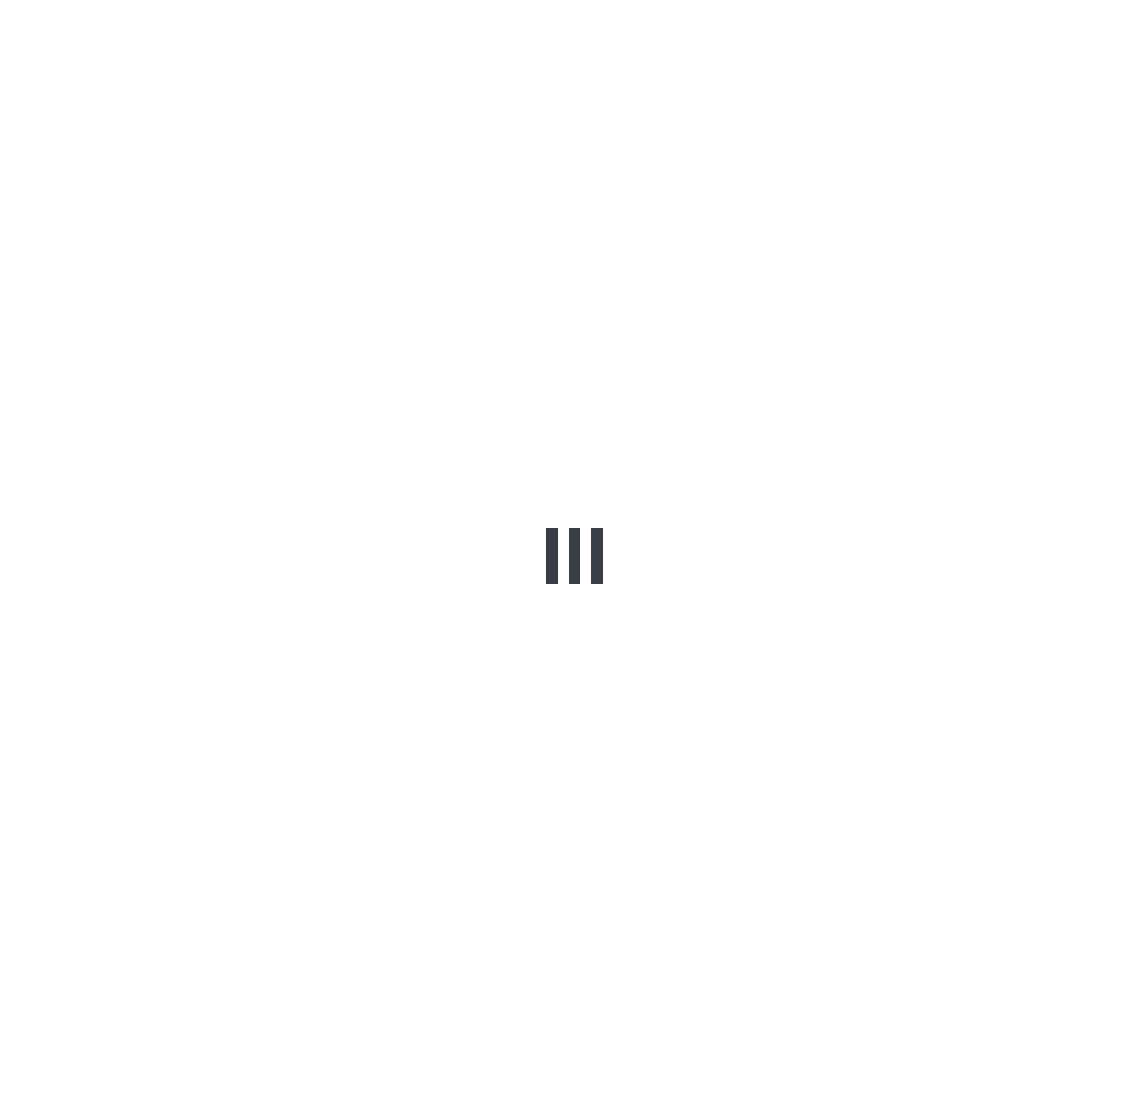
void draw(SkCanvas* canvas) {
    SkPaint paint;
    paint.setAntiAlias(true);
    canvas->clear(0xFFFFFFFF);
    paint.setColor(0xFF393E46);
    canvas->drawRect(SkRect::MakeXYWH(591, 528, 12, 56), paint);
    canvas->drawRect(SkRect::MakeXYWH(569, 528, 11, 56), paint);
    canvas->drawRect(SkRect::MakeXYWH(546, 528, 12, 56), paint);
}
